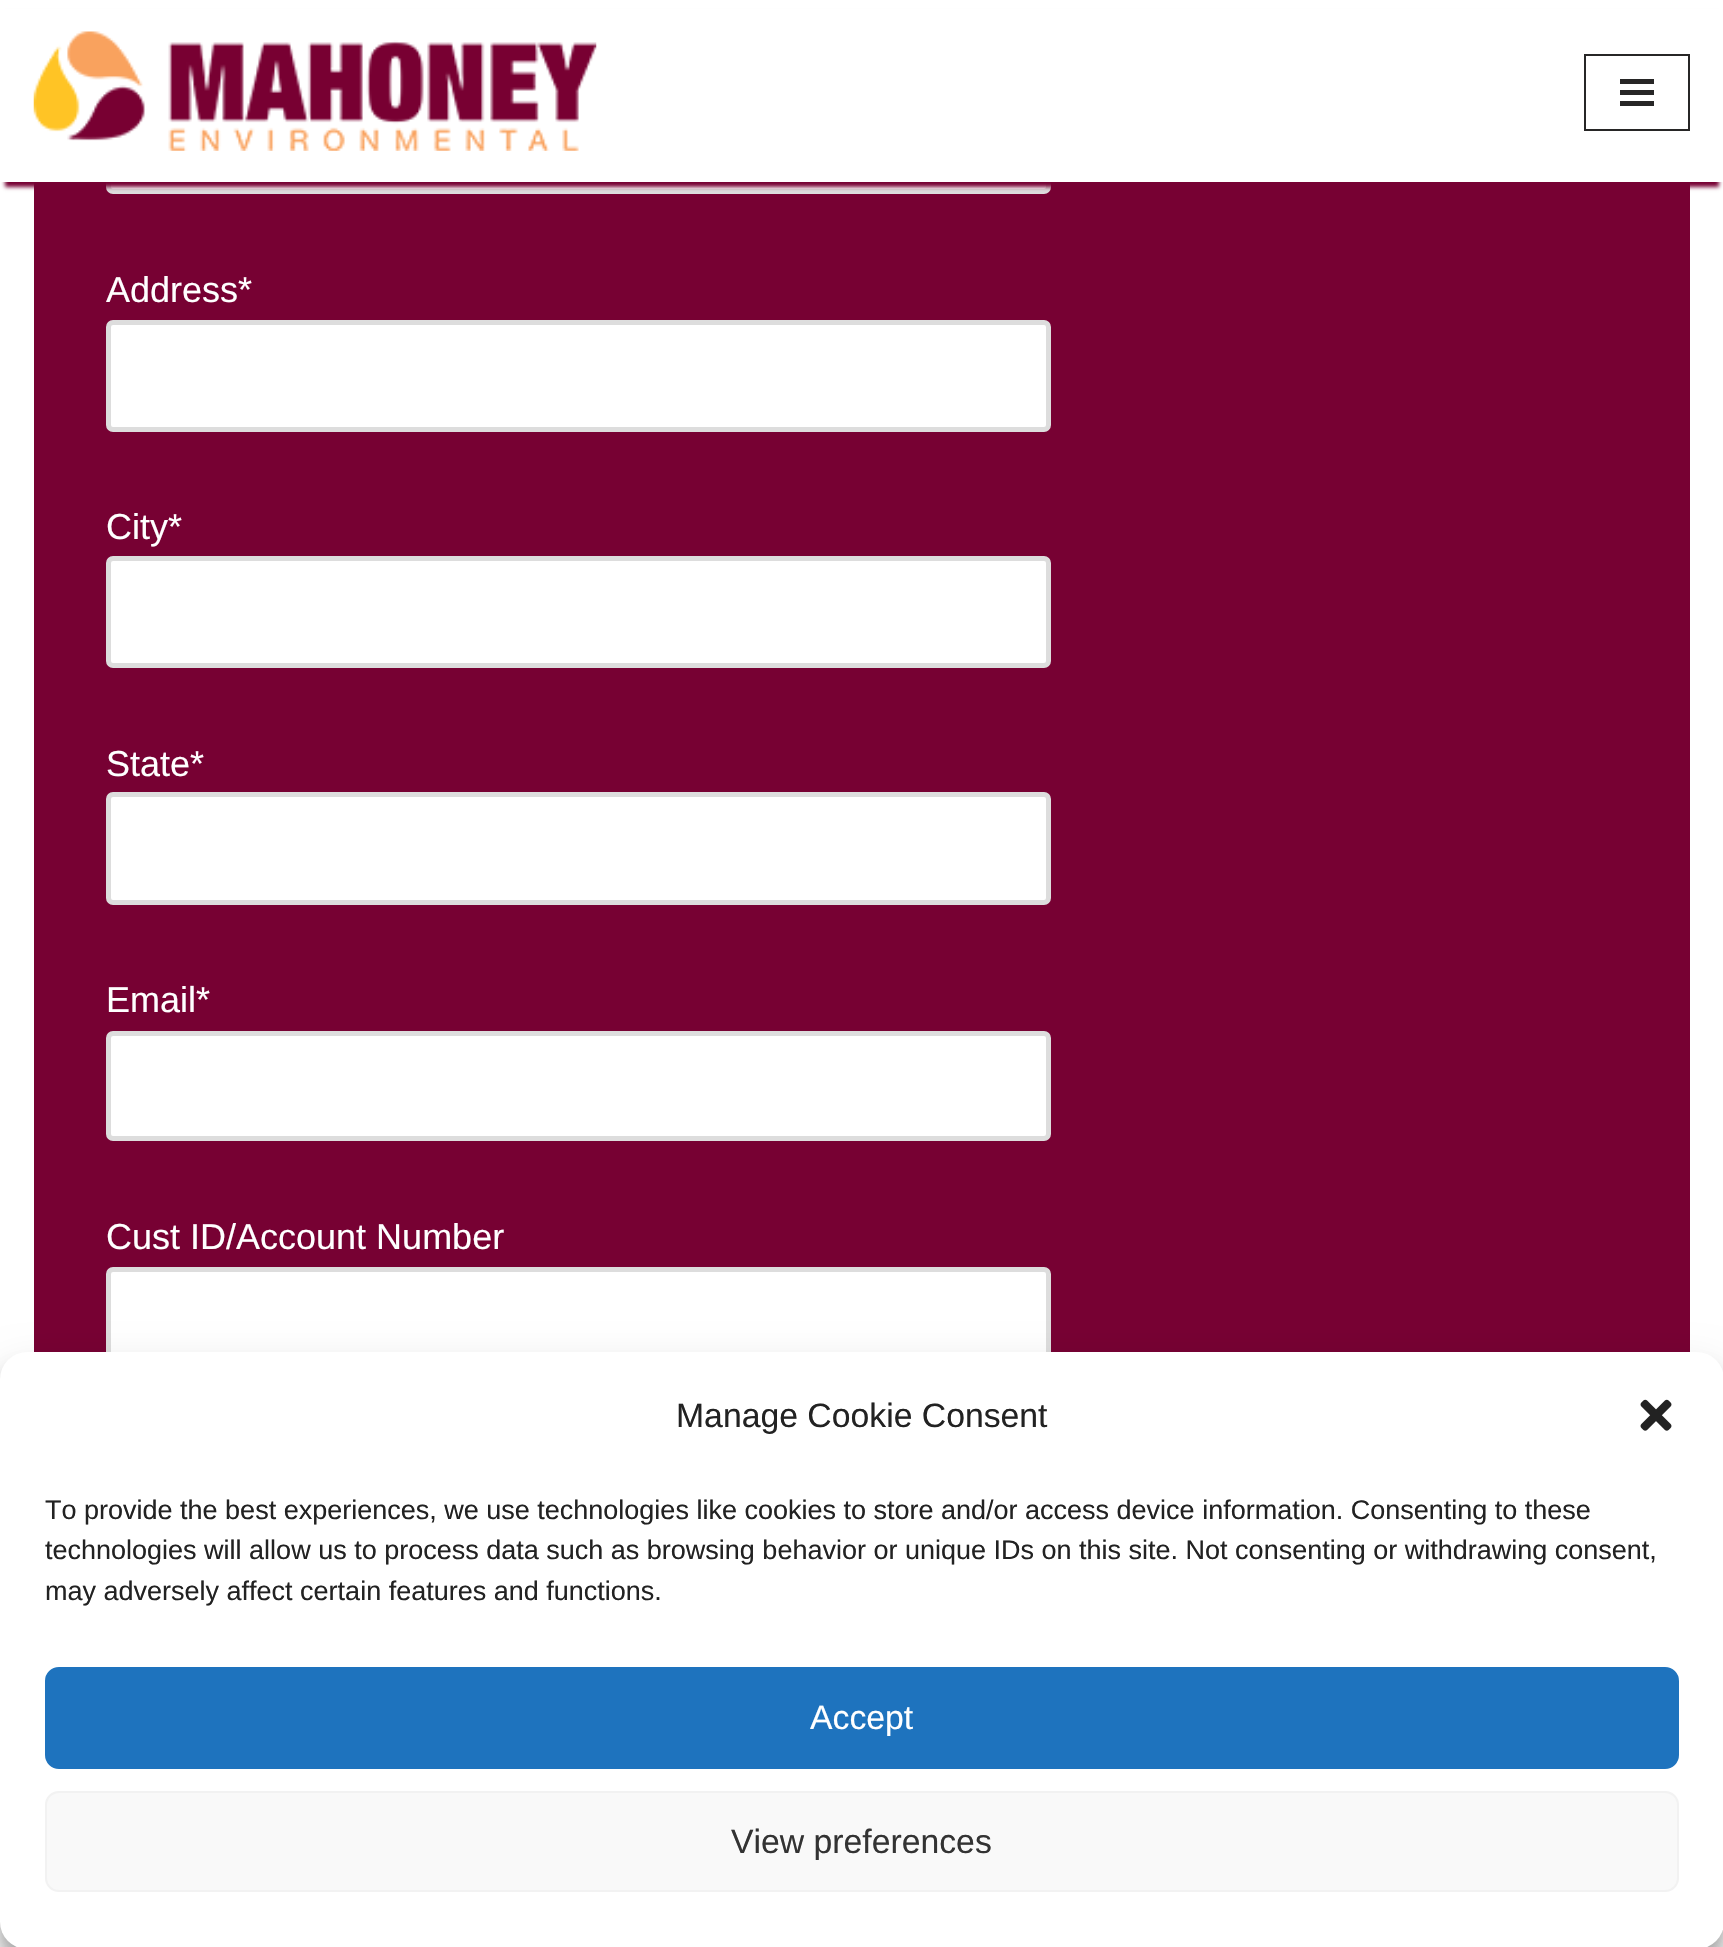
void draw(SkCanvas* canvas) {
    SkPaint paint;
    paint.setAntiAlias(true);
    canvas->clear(0xFFFFFFFF);
    paint.setColor(0xFF770133);
    canvas->drawRect(SkRect::MakeXYWH(34, 182, 1656, 1170), paint);
    paint.setColor(0xFFFFFFFF);
    canvas->drawRoundRect(SkRect::MakeXYWH(108.5f, 85.5f, 940, 106), 4.5f, 4.5f, paint);
    paint.setStyle(SkPaint::kStroke_Style);
    paint.setStrokeWidth(5);
    paint.setColor(0xFFDDDDDD);
    canvas->drawRoundRect(SkRect::MakeXYWH(108.5f, 85.5f, 940, 106), 4.5f, 4.5f, paint);
    paint.setStyle(SkPaint::kFill_Style);
    paint.setColor(0xFF770133);
    paint.setMaskFilter(SkMaskFilter::MakeBlur(kNormal_SkBlurStyle, 2));
    canvas->drawRect(SkRect::MakeXYWH(5, 14, 1714, 173), paint);
    paint.setMaskFilter(nullptr);
    paint.setColor(0xFFFFFFFF);
    canvas->drawRect(SkRect::MakeXYWH(0, 9, 1723, 173), paint);
    canvas->drawImageRect(SkImages::DeferredFromEncodedData(SkData::MakeFromFileName("img1.png")), SkRect::MakeXYWH(33, 31, 564, 120), SkSamplingOptions());
    paint.setStyle(SkPaint::kStroke_Style);
    paint.setStrokeWidth(2);
    paint.setColor(0xFF272626);
    canvas->drawRect(SkRect::MakeXYWH(1585, 55, 104, 75), paint);
    paint.setStyle(SkPaint::kFill_Style);
    canvas->drawRect(SkRect::MakeXYWH(1620, 79, 34, 5), paint);
    canvas->drawRect(SkRect::MakeXYWH(1620, 90, 34, 5), paint);
    canvas->drawRect(SkRect::MakeXYWH(1620, 101, 34, 5), paint);
    SkFont font1(fontMgr->matchFamilyStyle("Liberation Sans", SkFontStyle::Normal()), 36);
    font1.setSubpixel(true);
    paint.setColor(0xFFFFFFFF);
    canvas->drawString("Address*", 106, 302, font1, paint);
    canvas->drawRoundRect(SkRect::MakeXYWH(108.5f, 322.5f, 940, 107), 4.5f, 4.5f, paint);
    paint.setStyle(SkPaint::kStroke_Style);
    paint.setStrokeWidth(5);
    paint.setColor(0xFFDDDDDD);
    canvas->drawRoundRect(SkRect::MakeXYWH(108.5f, 322.5f, 940, 107), 4.5f, 4.5f, paint);
    paint.setStyle(SkPaint::kFill_Style);
    paint.setColor(0xFFFFFFFF);
    canvas->drawString("City*", 106, 539, font1, paint);
    canvas->drawRoundRect(SkRect::MakeXYWH(108.5f, 558.5f, 940, 107), 4.5f, 4.5f, paint);
    paint.setStyle(SkPaint::kStroke_Style);
    paint.setColor(0xFFDDDDDD);
    canvas->drawRoundRect(SkRect::MakeXYWH(108.5f, 558.5f, 940, 107), 4.5f, 4.5f, paint);
    paint.setStyle(SkPaint::kFill_Style);
    paint.setColor(0xFFFFFFFF);
    canvas->drawString("State*", 106, 776, font1, paint);
    canvas->drawRoundRect(SkRect::MakeXYWH(108.5f, 794.5f, 940, 108), 4.5f, 4.5f, paint);
    paint.setStyle(SkPaint::kStroke_Style);
    paint.setColor(0xFFDDDDDD);
    canvas->drawRoundRect(SkRect::MakeXYWH(108.5f, 794.5f, 940, 108), 4.5f, 4.5f, paint);
    paint.setStyle(SkPaint::kFill_Style);
    paint.setColor(0xFFFFFFFF);
    canvas->drawString("Email*", 106, 1012, font1, paint);
    canvas->drawRoundRect(SkRect::MakeXYWH(108.5f, 1033.5f, 940, 105), 4.5f, 4.5f, paint);
    paint.setStyle(SkPaint::kStroke_Style);
    paint.setColor(0xFFDDDDDD);
    canvas->drawRoundRect(SkRect::MakeXYWH(108.5f, 1033.5f, 940, 105), 4.5f, 4.5f, paint);
    paint.setStyle(SkPaint::kFill_Style);
    paint.setColor(0xFFFFFFFF);
    canvas->drawString("Cust ID/Account Number", 106, 1249, font1, paint);
    canvas->drawRoundRect(SkRect::MakeXYWH(108.5f, 1269.5f, 940, 105), 4.5f, 4.5f, paint);
    paint.setStyle(SkPaint::kStroke_Style);
    paint.setColor(0xFFDDDDDD);
    canvas->drawRoundRect(SkRect::MakeXYWH(108.5f, 1269.5f, 940, 105), 4.5f, 4.5f, paint);
    paint.setStyle(SkPaint::kFill_Style);
    paint.setColor(0x3B000000);
    paint.setMaskFilter(SkMaskFilter::MakeBlur(kNormal_SkBlurStyle, 7));
    canvas->drawRoundRect(SkRect::MakeXYWH(0, 1366, 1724, 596), 27, 27, paint);
    paint.setMaskFilter(nullptr);
    paint.setColor(0x30000000);
    paint.setMaskFilter(SkMaskFilter::MakeBlur(kNormal_SkBlurStyle, 22.5f));
    canvas->drawRoundRect(SkRect::MakeXYWH(0, 1375, 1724, 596), 27, 27, paint);
    paint.setMaskFilter(nullptr);
    paint.setColor(0xFFFFFFFF);
    canvas->drawRoundRect(SkRect::MakeXYWH(0, 1352, 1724, 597), 27, 27, paint);
    SkFont font2(fontMgr->matchFamilyStyle("Liberation Sans", SkFontStyle::Normal()), 33.75f);
    font2.setSubpixel(true);
    paint.setColor(0xFF222222);
    canvas->drawString("Manage Cookie Consent", 676, 1427, font2, paint);
    canvas->drawImageRect(SkImages::DeferredFromEncodedData(SkData::MakeFromFileName("img2.png")), SkRect::MakeXYWH(1640, 1399, 32, 32), SkSamplingOptions());
    SkFont font3(fontMgr->matchFamilyStyle("Liberation Sans", SkFontStyle::Normal()), 27);
    font3.setSubpixel(true);
    canvas->drawString("To provide the best experiences, we use technologies like cookies to store and/or access device information. Consenting to these", 45, 1519, font3, paint);
    canvas->drawString("technologies will allow us to process data such as browsing behavior or unique IDs on this site. Not consenting or withdrawing consent,", 45, 1559, font3, paint);
    canvas->drawString("may adversely affect certain features and functions.", 45, 1600, font3, paint);
    paint.setColor(0xFF1E73BE);
    canvas->drawRoundRect(SkRect::MakeXYWH(46, 1668, 1632, 100), 13, 13, paint);
    paint.setStyle(SkPaint::kStroke_Style);
    paint.setStrokeWidth(2);
    canvas->drawRoundRect(SkRect::MakeXYWH(46, 1668, 1632, 100), 13, 13, paint);
    paint.setStyle(SkPaint::kFill_Style);
    paint.setColor(0xFFFFFFFF);
    canvas->drawString("Accept", 810, 1729, font2, paint);
    paint.setColor(0xFFF9F9F9);
    canvas->drawRoundRect(SkRect::MakeXYWH(46, 1792, 1632, 99), 13, 13, paint);
    paint.setStyle(SkPaint::kStroke_Style);
    paint.setColor(0xFFF2F2F2);
    canvas->drawRoundRect(SkRect::MakeXYWH(46, 1792, 1632, 99), 13, 13, paint);
    paint.setStyle(SkPaint::kFill_Style);
    paint.setColor(0xFF333333);
    canvas->drawString("View preferences", 731, 1853, font2, paint);
}
